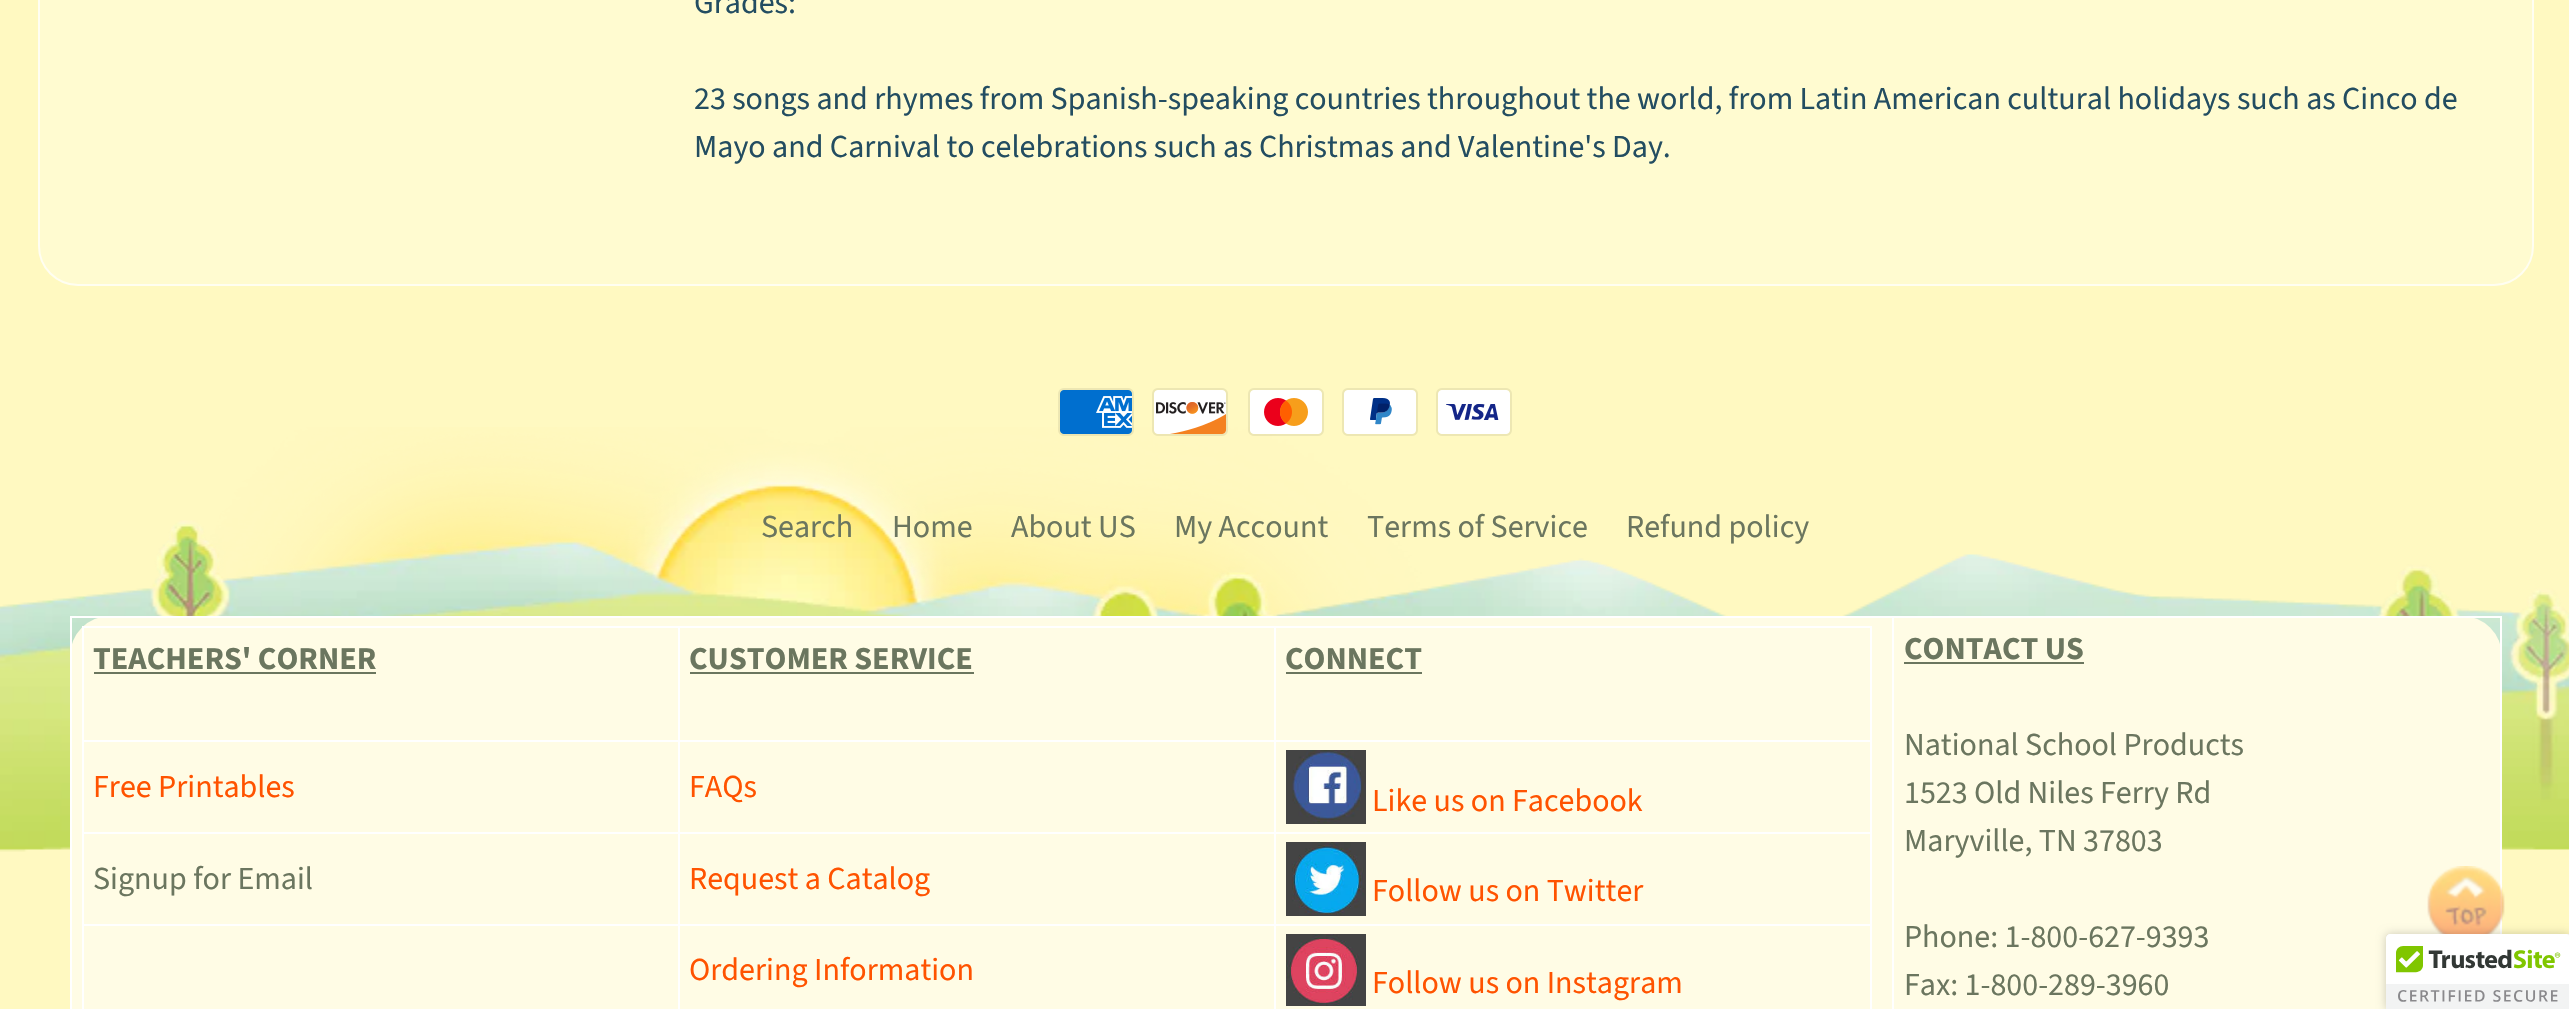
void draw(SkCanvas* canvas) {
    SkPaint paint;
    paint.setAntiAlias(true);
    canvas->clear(0xFFFFF9C1);
    paint.setColor(0xFFFFFBD0);
    canvas->drawRoundRect(SkRect::MakeXYWH(38, -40, 2496, 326), 40, 40, paint);
    paint.setStyle(SkPaint::kStroke_Style);
    paint.setStrokeWidth(2);
    paint.setColor(0xB3FFFFFF);
    canvas->drawRoundRect(SkRect::MakeXYWH(39, -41, 2494, 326), 39, 39, paint);
    SkFont font1(fontMgr->matchFamilyStyle("Source Sans Pro", SkFontStyle::Normal()), 32);
    font1.setSubpixel(true);
    paint.setStyle(SkPaint::kFill_Style);
    paint.setColor(0xFF234D61);
    canvas->drawString("Grades:", 694, 13, font1, paint);
    canvas->drawString("23 songs and rhymes from Spanish-speaking countries throughout the world, from Latin American cultural holidays such as Cinco de", 694, 109, font1, paint);
    canvas->drawString("Mayo and Carnival to celebrations such as Christmas and Valentine's Day.", 694, 157, font1, paint);
    canvas->drawImageRect(SkImages::DeferredFromEncodedData(SkData::MakeFromFileName("img1.png")), SkRect::MakeXYWH(0, 427, 2569, 425), SkSamplingOptions());
    canvas->drawImageRect(SkImages::DeferredFromEncodedData(SkData::MakeFromFileName("img2.png")), SkRect::MakeXYWH(1058, 388, 76, 48), SkSamplingOptions());
    canvas->drawImageRect(SkImages::DeferredFromEncodedData(SkData::MakeFromFileName("img3.png")), SkRect::MakeXYWH(1152, 388, 76, 48), SkSamplingOptions());
    canvas->drawImageRect(SkImages::DeferredFromEncodedData(SkData::MakeFromFileName("img4.png")), SkRect::MakeXYWH(1248, 388, 76, 48), SkSamplingOptions());
    canvas->drawImageRect(SkImages::DeferredFromEncodedData(SkData::MakeFromFileName("img5.png")), SkRect::MakeXYWH(1342, 388, 76, 48), SkSamplingOptions());
    canvas->drawImageRect(SkImages::DeferredFromEncodedData(SkData::MakeFromFileName("img6.png")), SkRect::MakeXYWH(1436, 388, 76, 48), SkSamplingOptions());
    paint.setColor(0xFF6B765F);
    canvas->drawString("Search", 761, 537, font1, paint);
    canvas->drawString("Home", 892, 537, font1, paint);
    canvas->drawString("About US", 1011, 537, font1, paint);
    canvas->drawString("My Account", 1174, 537, font1, paint);
    canvas->drawString("Terms of Service", 1367, 537, font1, paint);
    canvas->drawString("Refund policy", 1626, 537, font1, paint);
    paint.setColor(0xFFFFFCE5);
    canvas->drawRoundRect(SkRect::MakeXYWH(70, 616, 2432, 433), 40, 40, paint);
    paint.setColor(0xFFFFFFFF);
    canvas->drawRect(SkRect::MakeXYWH(1892, 616, 610, 2), paint);
    canvas->drawRect(SkRect::MakeXYWH(1892, 616, 2, 393), paint);
    canvas->drawRect(SkRect::MakeXYWH(70, 616, 1824, 2), paint);
    canvas->drawRect(SkRect::MakeXYWH(70, 616, 2, 393), paint);
    canvas->drawRect(SkRect::MakeXYWH(1274, 626, 598, 2), paint);
    canvas->drawRect(SkRect::MakeXYWH(1274, 740, 598, 2), paint);
    canvas->drawRect(SkRect::MakeXYWH(1274, 832, 598, 2), paint);
    canvas->drawRect(SkRect::MakeXYWH(1274, 924, 598, 2), paint);
    canvas->drawRect(SkRect::MakeXYWH(1274, 924, 2, 85), paint);
    canvas->drawRect(SkRect::MakeXYWH(678, 924, 598, 2), paint);
    canvas->drawRect(SkRect::MakeXYWH(1274, 832, 2, 94), paint);
    canvas->drawRect(SkRect::MakeXYWH(678, 832, 598, 2), paint);
    canvas->drawRect(SkRect::MakeXYWH(1274, 740, 2, 94), paint);
    canvas->drawRect(SkRect::MakeXYWH(678, 740, 598, 2), paint);
    canvas->drawRect(SkRect::MakeXYWH(1274, 626, 2, 116), paint);
    canvas->drawRect(SkRect::MakeXYWH(678, 626, 598, 2), paint);
    canvas->drawRect(SkRect::MakeXYWH(678, 924, 2, 85), paint);
    canvas->drawRect(SkRect::MakeXYWH(82, 924, 598, 2), paint);
    canvas->drawRect(SkRect::MakeXYWH(678, 832, 2, 94), paint);
    canvas->drawRect(SkRect::MakeXYWH(82, 832, 598, 2), paint);
    canvas->drawRect(SkRect::MakeXYWH(678, 740, 2, 94), paint);
    canvas->drawRect(SkRect::MakeXYWH(82, 740, 598, 2), paint);
    canvas->drawRect(SkRect::MakeXYWH(678, 626, 2, 116), paint);
    canvas->drawRect(SkRect::MakeXYWH(82, 626, 598, 2), paint);
    canvas->drawRect(SkRect::MakeXYWH(82, 924, 2, 85), paint);
    canvas->drawRect(SkRect::MakeXYWH(82, 832, 2, 94), paint);
    canvas->drawRect(SkRect::MakeXYWH(82, 740, 2, 94), paint);
    canvas->drawRect(SkRect::MakeXYWH(82, 626, 2, 116), paint);
    SkFont font2(fontMgr->matchFamilyStyle("Source Sans Pro", SkFontStyle::Bold()), 32);
    font2.setSubpixel(true);
    paint.setColor(0xFF6B765F);
    canvas->drawString("TEACHERS' CORNER", 93, 669, font2, paint);
    canvas->drawRect(SkRect::MakeXYWH(94, 672, 282, 2), paint);
    canvas->drawString("CUSTOMER SERVICE", 689, 669, font2, paint);
    canvas->drawRect(SkRect::MakeXYWH(690, 672, 284, 2), paint);
    paint.setColor(0xFFFFFFFF);
    canvas->drawRect(SkRect::MakeXYWH(1870, 924, 2, 85), paint);
    canvas->drawRect(SkRect::MakeXYWH(1870, 832, 2, 94), paint);
    canvas->drawRect(SkRect::MakeXYWH(1870, 740, 2, 94), paint);
    canvas->drawRect(SkRect::MakeXYWH(1870, 626, 2, 116), paint);
    paint.setColor(0xFF6B765F);
    canvas->drawString("CONNECT", 1285, 669, font2, paint);
    canvas->drawRect(SkRect::MakeXYWH(1286, 672, 136, 2), paint);
    paint.setColor(0xFFFF5300);
    canvas->drawString("Free Printables", 93, 797, font1, paint);
    canvas->drawString("FAQs", 689, 797, font1, paint);
    canvas->drawImageRect(SkImages::DeferredFromEncodedData(SkData::MakeFromFileName("img7.png")), SkRect::MakeXYWH(1286, 750, 80, 74), SkSamplingOptions());
    canvas->drawString("Like us on Facebook", 1372, 811, font1, paint);
    paint.setColor(0xFF6B765F);
    canvas->drawString("Signup for Email", 93, 889, font1, paint);
    paint.setColor(0xFFFF5300);
    canvas->drawString("Request a Catalog", 689, 889, font1, paint);
    canvas->drawImageRect(SkImages::DeferredFromEncodedData(SkData::MakeFromFileName("img8.png")), SkRect::MakeXYWH(1286, 842, 80, 74), SkSamplingOptions());
    canvas->drawString("Follow us on Twitter", 1372, 901, font1, paint);
    canvas->drawString("Ordering Information", 689, 980, font1, paint);
    canvas->drawImageRect(SkImages::DeferredFromEncodedData(SkData::MakeFromFileName("img9.png")), SkRect::MakeXYWH(1286, 934, 80, 72), SkSamplingOptions());
    canvas->drawString("Follow us on Instagram", 1372, 993, font1, paint);
    paint.setColor(0xFFFFFFFF);
    canvas->drawRect(SkRect::MakeXYWH(2500, 616, 2, 318), paint);
    paint.setColor(0xFF6B765F);
    canvas->drawString("CONTACT US", 1904, 659, font2, paint);
    canvas->drawRect(SkRect::MakeXYWH(1904, 662, 180, 2), paint);
    canvas->drawString("National School Products", 1904, 755, font1, paint);
    canvas->drawString("1523 Old Niles Ferry Rd", 1904, 803, font1, paint);
    canvas->drawString("Maryville, TN 37803", 1904, 851, font1, paint);
    canvas->drawString("Phone: 1-800-627-9393", 1904, 947, font1, paint);
    canvas->drawString("Fax: 1-800-289-3960", 1904, 995, font1, paint);
    canvas->drawImageRect(SkImages::DeferredFromEncodedData(SkData::MakeFromFileName("img10.png")), SkRect::MakeXYWH(2427, 866, 78, 68), SkSamplingOptions());
    paint.setColor(0x33000000);
    paint.setMaskFilter(SkMaskFilter::MakeBlur(kNormal_SkBlurStyle, 5));
    canvas->drawRoundRect(SkRect::MakeXYWH(2386, 934, 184, 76), 4, 4, paint);
    paint.setMaskFilter(nullptr);
    paint.setColor(0xFFFFFFFF);
    canvas->drawPath(SkPathBuilder().moveTo(2390, 934).lineTo(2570, 934).lineTo(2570, 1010).lineTo(2386, 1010).lineTo(2386, 938).cubicTo(2386, 936, 2388, 934, 2390, 934).close().detach(), paint);
    canvas->drawImageRect(SkImages::DeferredFromEncodedData(SkData::MakeFromFileName("img11.png")), SkRect::MakeXYWH(2386, 934, 183, 75), SkSamplingOptions());
}
